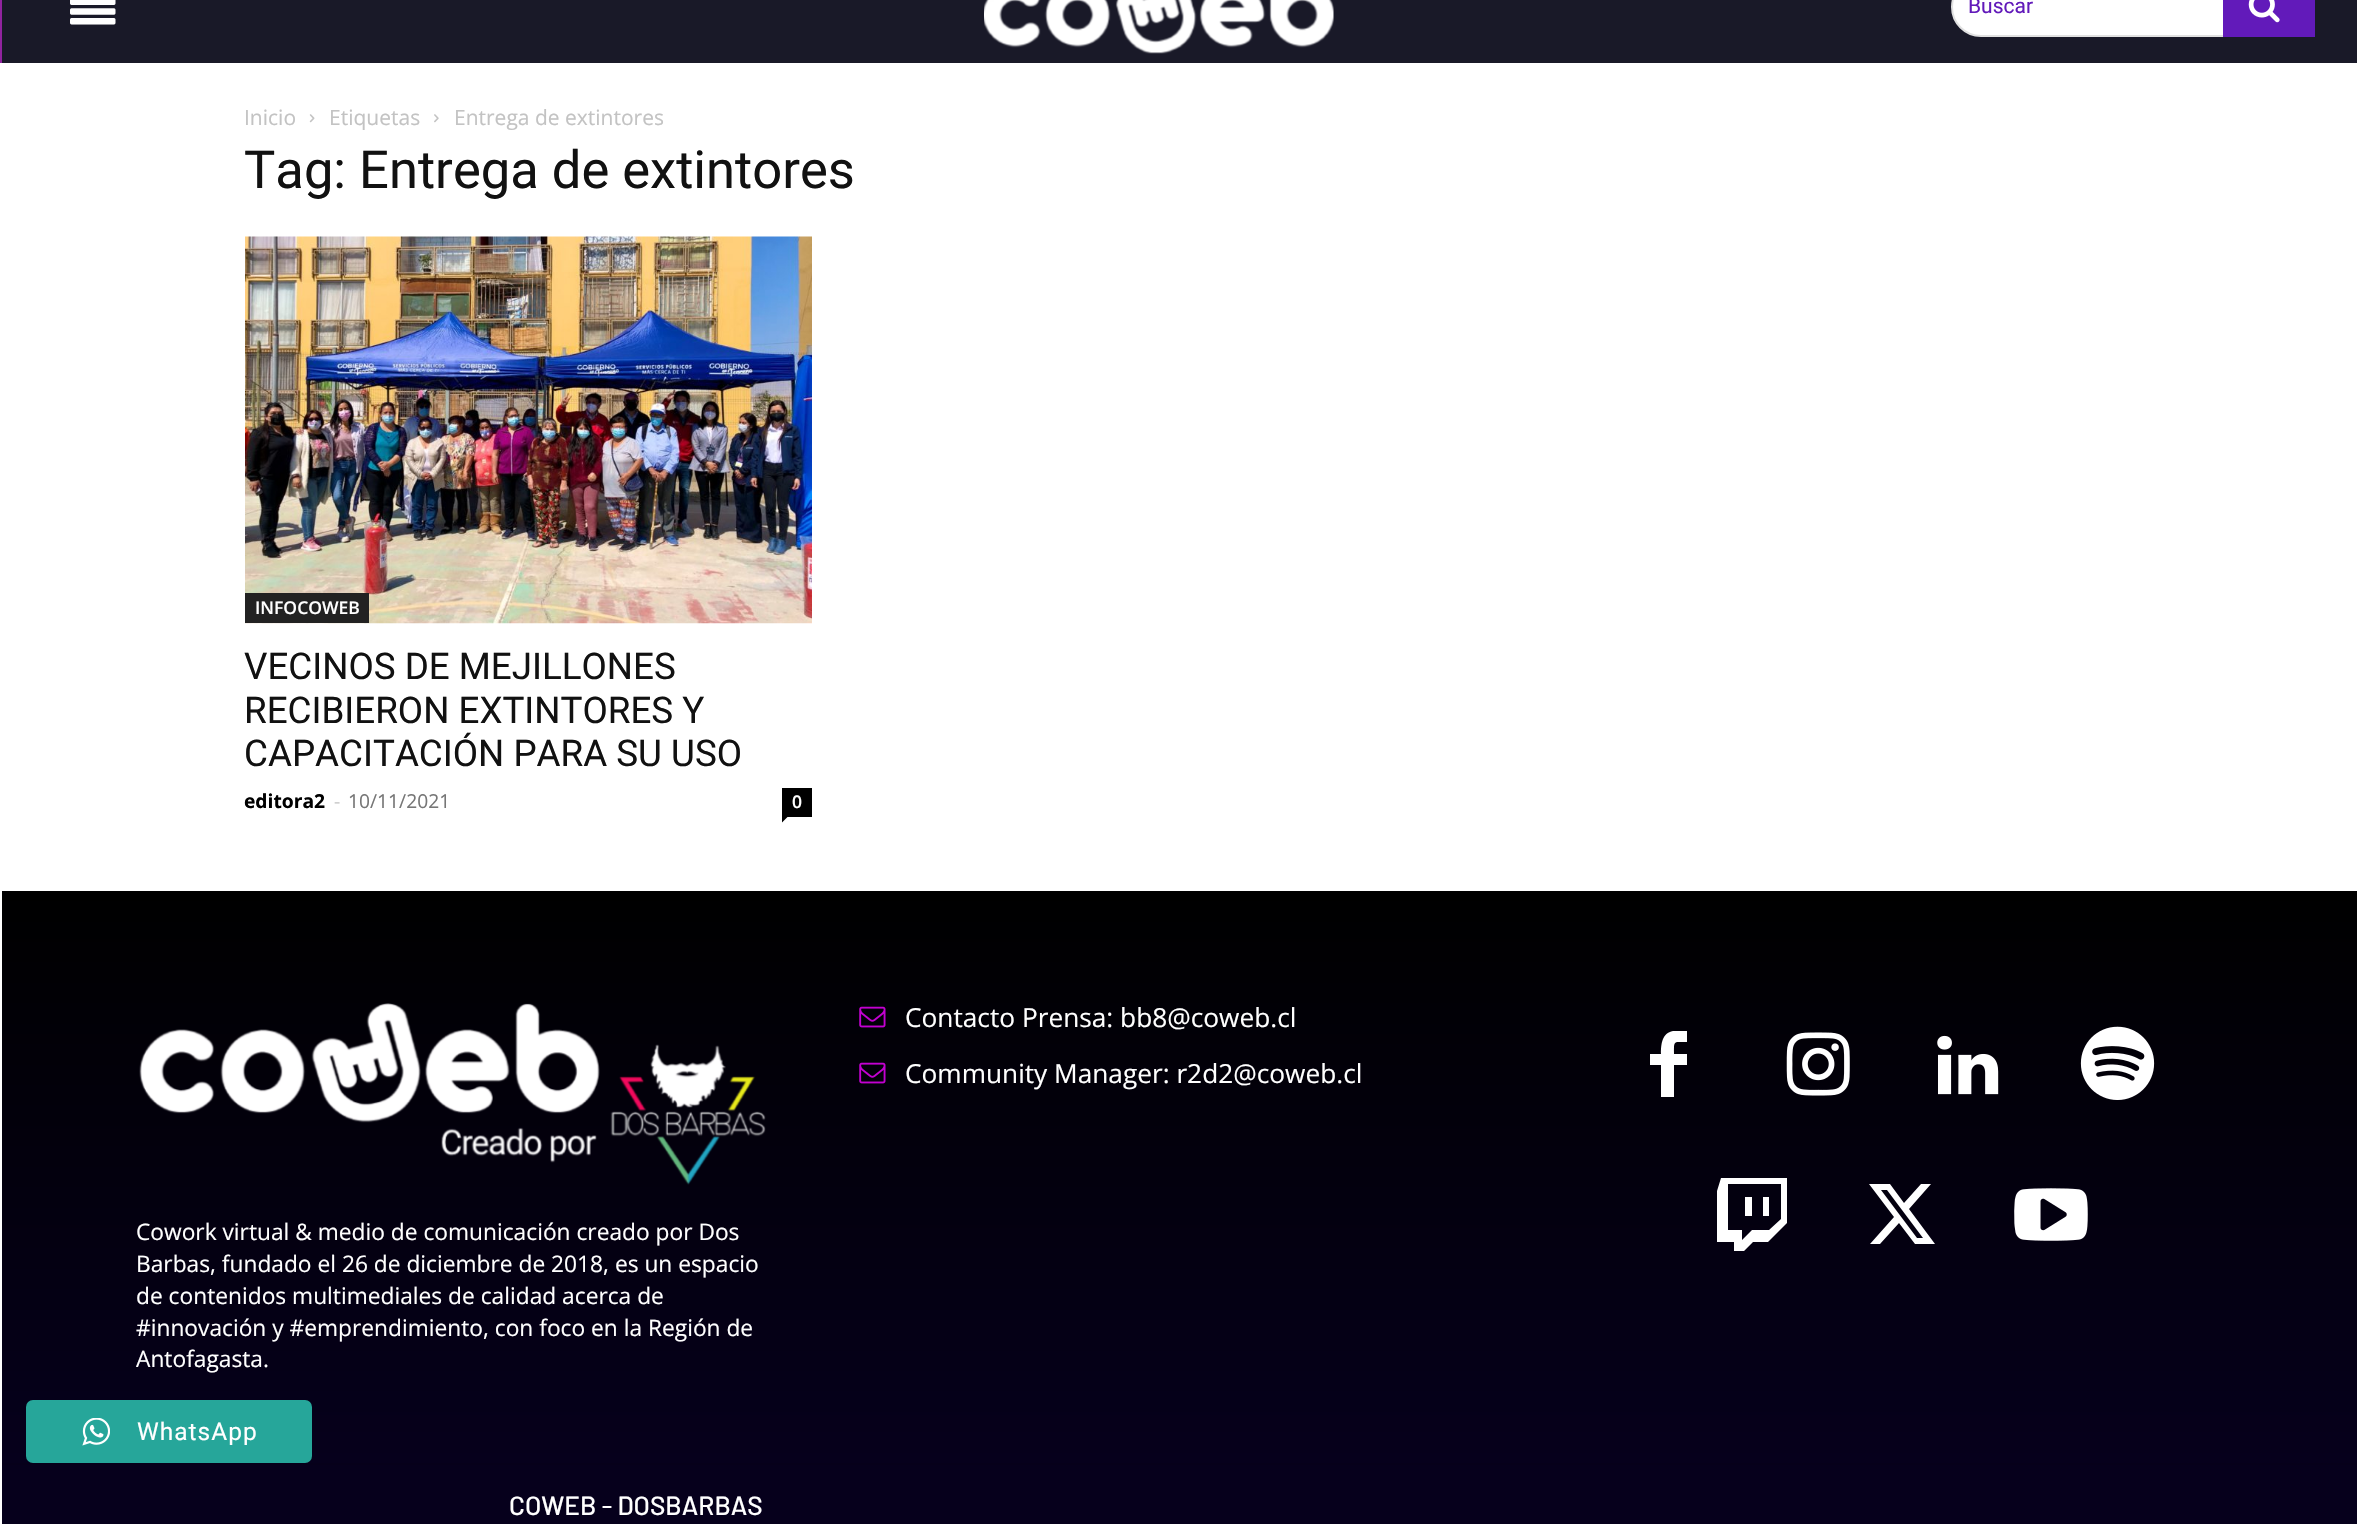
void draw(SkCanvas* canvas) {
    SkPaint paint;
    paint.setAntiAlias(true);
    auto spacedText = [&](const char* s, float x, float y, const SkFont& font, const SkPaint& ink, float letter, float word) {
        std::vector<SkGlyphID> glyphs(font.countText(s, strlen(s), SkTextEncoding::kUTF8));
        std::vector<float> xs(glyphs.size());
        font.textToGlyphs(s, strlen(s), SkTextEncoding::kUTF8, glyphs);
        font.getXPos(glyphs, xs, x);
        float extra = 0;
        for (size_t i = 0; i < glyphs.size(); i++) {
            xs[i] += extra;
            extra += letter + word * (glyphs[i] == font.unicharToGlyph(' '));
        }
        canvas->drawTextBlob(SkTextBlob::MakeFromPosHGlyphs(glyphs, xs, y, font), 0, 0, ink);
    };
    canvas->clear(0xFFFFFFFF);
    paint.setColor(0xFF91239F);
    canvas->drawRect(SkRect::MakeXYWH(0, 0, 2, 63), paint);
    paint.setColor(0xFF191928);
    canvas->drawRect(SkRect::MakeXYWH(2, 0, 2355, 63), paint);
    canvas->drawImageRect(SkImages::DeferredFromEncodedData(SkData::MakeFromFileName("img1.png")), SkRect::MakeXYWH(70, 0, 46, 25), SkSamplingOptions());
    canvas->drawImageRect(SkImages::DeferredFromEncodedData(SkData::MakeFromFileName("img2.png")), SkRect::MakeXYWH(984, 0, 350, 54), SkSamplingOptions());
    paint.setColor(0xFFFFFFFF);
    canvas->drawRoundRect(SkRect::MakeXYWH(1952, -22, 362, 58), 29, 29, paint);
    paint.setStyle(SkPaint::kStroke_Style);
    paint.setStrokeWidth(2);
    paint.setColor(0xFFE1E1E1);
    canvas->drawRoundRect(SkRect::MakeXYWH(1952, -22, 362, 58), 29, 29, paint);
    SkFont font1(fontMgr->matchFamilyStyle("Roboto", SkFontStyle::Normal()), 21);
    font1.setSubpixel(true);
    paint.setStyle(SkPaint::kFill_Style);
    paint.setColor(0xFF621ABA);
    canvas->drawString("Buscar", 1968, 13, font1, paint);
    canvas->drawRect(SkRect::MakeXYWH(2223, 0, 92, 37), paint);
    canvas->drawImageRect(SkImages::DeferredFromEncodedData(SkData::MakeFromFileName("img3.png")), SkRect::MakeXYWH(2248, 0, 32, 23), SkSamplingOptions());
    SkFont font2(fontMgr->matchFamilyStyle("Open Sans", SkFontStyle::Normal()), 21);
    font2.setSubpixel(true);
    paint.setColor(0xFFC3C3C3);
    canvas->drawString("Inicio", 244, 125, font2, paint);
    canvas->drawImageRect(SkImages::DeferredFromEncodedData(SkData::MakeFromFileName("img4.png")), SkRect::MakeXYWH(309, 114, 6, 9), SkSamplingOptions());
    canvas->drawString("Etiquetas", 329, 125, font2, paint);
    canvas->drawImageRect(SkImages::DeferredFromEncodedData(SkData::MakeFromFileName("img5.png")), SkRect::MakeXYWH(434, 114, 5, 9), SkSamplingOptions());
    canvas->drawString("Entrega de extintores", 454, 125, font2, paint);
    SkFont font3(fontMgr->matchFamilyStyle("Roboto", SkFontStyle::Normal()), 52.5f);
    font3.setSubpixel(true);
    paint.setColor(0xFF111111);
    canvas->drawString("Tag: Entrega de extintores", 244, 188, font3, paint);
    canvas->drawImageRect(SkImages::DeferredFromEncodedData(SkData::MakeFromFileName("img6.png")), SkRect::MakeXYWH(245, 236, 567, 388), SkSamplingOptions());
    paint.setColor(0xFF222222);
    canvas->drawRect(SkRect::MakeXYWH(245, 593, 124, 30), paint);
    SkFont font4(fontMgr->matchFamilyStyle("Open Sans", SkFontStyle(600, SkFontStyle::kNormal_Width, SkFontStyle::kUpright_Slant)), 17.5f);
    font4.setSubpixel(true);
    paint.setColor(0xFFFFFFFF);
    canvas->drawString("INFOCOWEB", 255, 614, font4, paint);
    SkFont font5(fontMgr->matchFamilyStyle("Roboto", SkFontStyle::Normal()), 36.75f);
    font5.setSubpixel(true);
    paint.setColor(0xFF111111);
    canvas->drawString("VECINOS DE MEJILLONES", 244, 679, font5, paint);
    canvas->drawString("RECIBIERON EXTINTORES Y", 244, 723, font5, paint);
    canvas->drawString("CAPACITACIÓN PARA SU USO", 244, 766, font5, paint);
    SkFont font6(fontMgr->matchFamilyStyle("Open Sans", SkFontStyle::Bold()), 19.25f);
    font6.setSubpixel(true);
    paint.setColor(0xFF000000);
    canvas->drawString("editora2", 244, 808, font6, paint);
    SkFont font7(fontMgr->matchFamilyStyle("Open Sans", SkFontStyle::Normal()), 19.25f);
    font7.setSubpixel(true);
    paint.setColor(0xFFCCCCCC);
    canvas->drawString("-", 334, 808, font7, paint);
    paint.setColor(0xFF767676);
    canvas->drawString("10/11/2021", 348, 808, font7, paint);
    paint.setColor(0xFF000000);
    canvas->drawRect(SkRect::MakeXYWH(782, 788, 30, 29), paint);
    paint.setColor(0xFFFFFFFF);
    canvas->drawString("0", 792, 808, font4, paint);
    paint.setColor(0xFF000000);
    canvas->drawPath(SkPathBuilder().moveTo(782, 817).lineTo(787.5f, 817).lineTo(782, 822.5f).close().detach(), paint);
    {
        const SkColor colors[] = {0xFF000000, 0xFF06001C};
        const float stops[] = {0, 1};
        const SkPoint ends[] = {{1180, 891}, {1180, 1463}};
        paint.setShader(SkGradientShader::MakeLinear(ends, colors, stops, 2, SkTileMode::kClamp));
        paint.setAlpha(255);
    }
    canvas->drawRect(SkRect::MakeXYWH(2, 891, 2355, 572), paint);
    canvas->drawImageRect(SkImages::DeferredFromEncodedData(SkData::MakeFromFileName("img7.png")), SkRect::MakeXYWH(859, 1006, 27, 22), SkSamplingOptions());
    SkFont font8(fontMgr->matchFamilyStyle("Open Sans", SkFontStyle::Normal()), 26.25f);
    font8.setSubpixel(true);
    paint.setShader(nullptr);
    paint.setColor(0xFFFFFFFF);
    canvas->drawString("Contacto Prensa: bb8@coweb.cl", 905, 1027, font8, paint);
    canvas->drawImageRect(SkImages::DeferredFromEncodedData(SkData::MakeFromFileName("img8.png")), SkRect::MakeXYWH(859, 1062, 27, 22), SkSamplingOptions());
    canvas->drawString("Community Manager: r2d2@coweb.cl", 905, 1083, font8, paint);
    canvas->drawPath(SkPathBuilder().moveTo(1687, 1042).cubicTo(1673, 1042, 1674, 1040, 1674, 1054).lineTo(1687, 1054).lineTo(1687, 1065).lineTo(1674, 1065).lineTo(1674, 1097).lineTo(1661, 1097).lineTo(1661, 1065).lineTo(1650, 1065).lineTo(1650, 1054).lineTo(1661, 1054).cubicTo(1661, 1044, 1662, 1033, 1673, 1031).lineTo(1687, 1031).close().detach(), paint);
    canvas->drawImageRect(SkImages::DeferredFromEncodedData(SkData::MakeFromFileName("img9.png")), SkRect::MakeXYWH(1786, 1032, 64, 64), SkSamplingOptions());
    canvas->drawImageRect(SkImages::DeferredFromEncodedData(SkData::MakeFromFileName("img10.png")), SkRect::MakeXYWH(1937, 1035, 62, 60), SkSamplingOptions());
    canvas->drawImageRect(SkImages::DeferredFromEncodedData(SkData::MakeFromFileName("img11.png")), SkRect::MakeXYWH(2080, 1026, 75, 74), SkSamplingOptions());
    canvas->drawPath(SkPathBuilder().moveTo(1721, 1178).lineTo(1717, 1191).lineTo(1717, 1242).lineTo(1734, 1242).lineTo(1734, 1251).lineTo(1744, 1251).lineTo(1753, 1242).lineTo(1768, 1242).lineTo(1787, 1223).lineTo(1787, 1178).close().moveTo(1728, 1184).lineTo(1781, 1184).lineTo(1781, 1219).lineTo(1769, 1230).lineTo(1752, 1230).lineTo(1742, 1240).lineTo(1742, 1230).lineTo(1728, 1230).close().moveTo(1745, 1216).lineTo(1752, 1216).lineTo(1752, 1197).lineTo(1745, 1197).close().moveTo(1763, 1216).lineTo(1769, 1216).lineTo(1769, 1197).lineTo(1763, 1197).close().detach(), paint);
    canvas->drawPath(SkPathBuilder().moveTo(1921, 1184).lineTo(1931, 1184).lineTo(1909, 1209).lineTo(1935, 1244).lineTo(1915, 1244).lineTo(1899, 1223).lineTo(1880, 1244).lineTo(1870, 1244).lineTo(1894, 1217).lineTo(1869, 1184).lineTo(1890, 1184).lineTo(1904, 1203).close().moveTo(1917, 1238).lineTo(1923, 1238).lineTo(1887, 1190).lineTo(1881, 1190).close().detach(), paint);
    canvas->drawImageRect(SkImages::DeferredFromEncodedData(SkData::MakeFromFileName("img12.png")), SkRect::MakeXYWH(2014, 1188, 74, 53), SkSamplingOptions());
    canvas->drawImageRect(SkImages::DeferredFromEncodedData(SkData::MakeFromFileName("img13.png")), SkRect::MakeXYWH(139, 1003, 627, 182), SkSamplingOptions());
    SkFont font9(fontMgr->matchFamilyStyle("Open Sans", SkFontStyle::Normal()), 22.75f);
    font9.setSubpixel(true);
    canvas->drawString("Cowork virtual & medio de comunicación creado por Dos", 136, 1240, font9, paint);
    canvas->drawString("Barbas, fundado el 26 de diciembre de 2018, es un espacio", 136, 1272, font9, paint);
    canvas->drawString("de contenidos multimediales de calidad acerca de", 136, 1304, font9, paint);
    canvas->drawString("#innovación y #emprendimiento, con foco en la Región de", 136, 1336, font9, paint);
    canvas->drawString("Antofagasta.", 136, 1367, font9, paint);
    paint.setColor(0xFF06001C);
    canvas->drawRect(SkRect::MakeXYWH(2, 1465, 2355, 59), paint);
    paint.setColor(0xFF06001A);
    canvas->drawRect(SkRect::MakeXYWH(2, 1463, 2355, 2), paint);
    SkFont font10(fontMgr->matchFamilyStyle("Barlow", SkFontStyle(500, SkFontStyle::kNormal_Width, SkFontStyle::kUpright_Slant)), 26.25f);
    font10.setSubpixel(true);
    paint.setColor(0xFFFFFFFF);
    canvas->drawString("COWEB - DOSBARBAS", 509, 1515, font10, paint);
    paint.setColor(0xFF26A69A);
    canvas->drawRoundRect(SkRect::MakeXYWH(26, 1400, 286, 63), 7, 7, paint);
    canvas->drawImageRect(SkImages::DeferredFromEncodedData(SkData::MakeFromFileName("img14.png")), SkRect::MakeXYWH(82, 1418, 28, 28), SkSamplingOptions());
    SkFont font11(fontMgr->matchFamilyStyle("Roboto", SkFontStyle::Normal()), 24.5f);
    font11.setSubpixel(true);
    paint.setColor(0xFFFFFFFF);
    spacedText("WhatsApp", 137, 1440, font11, paint, 1, 0);
}
